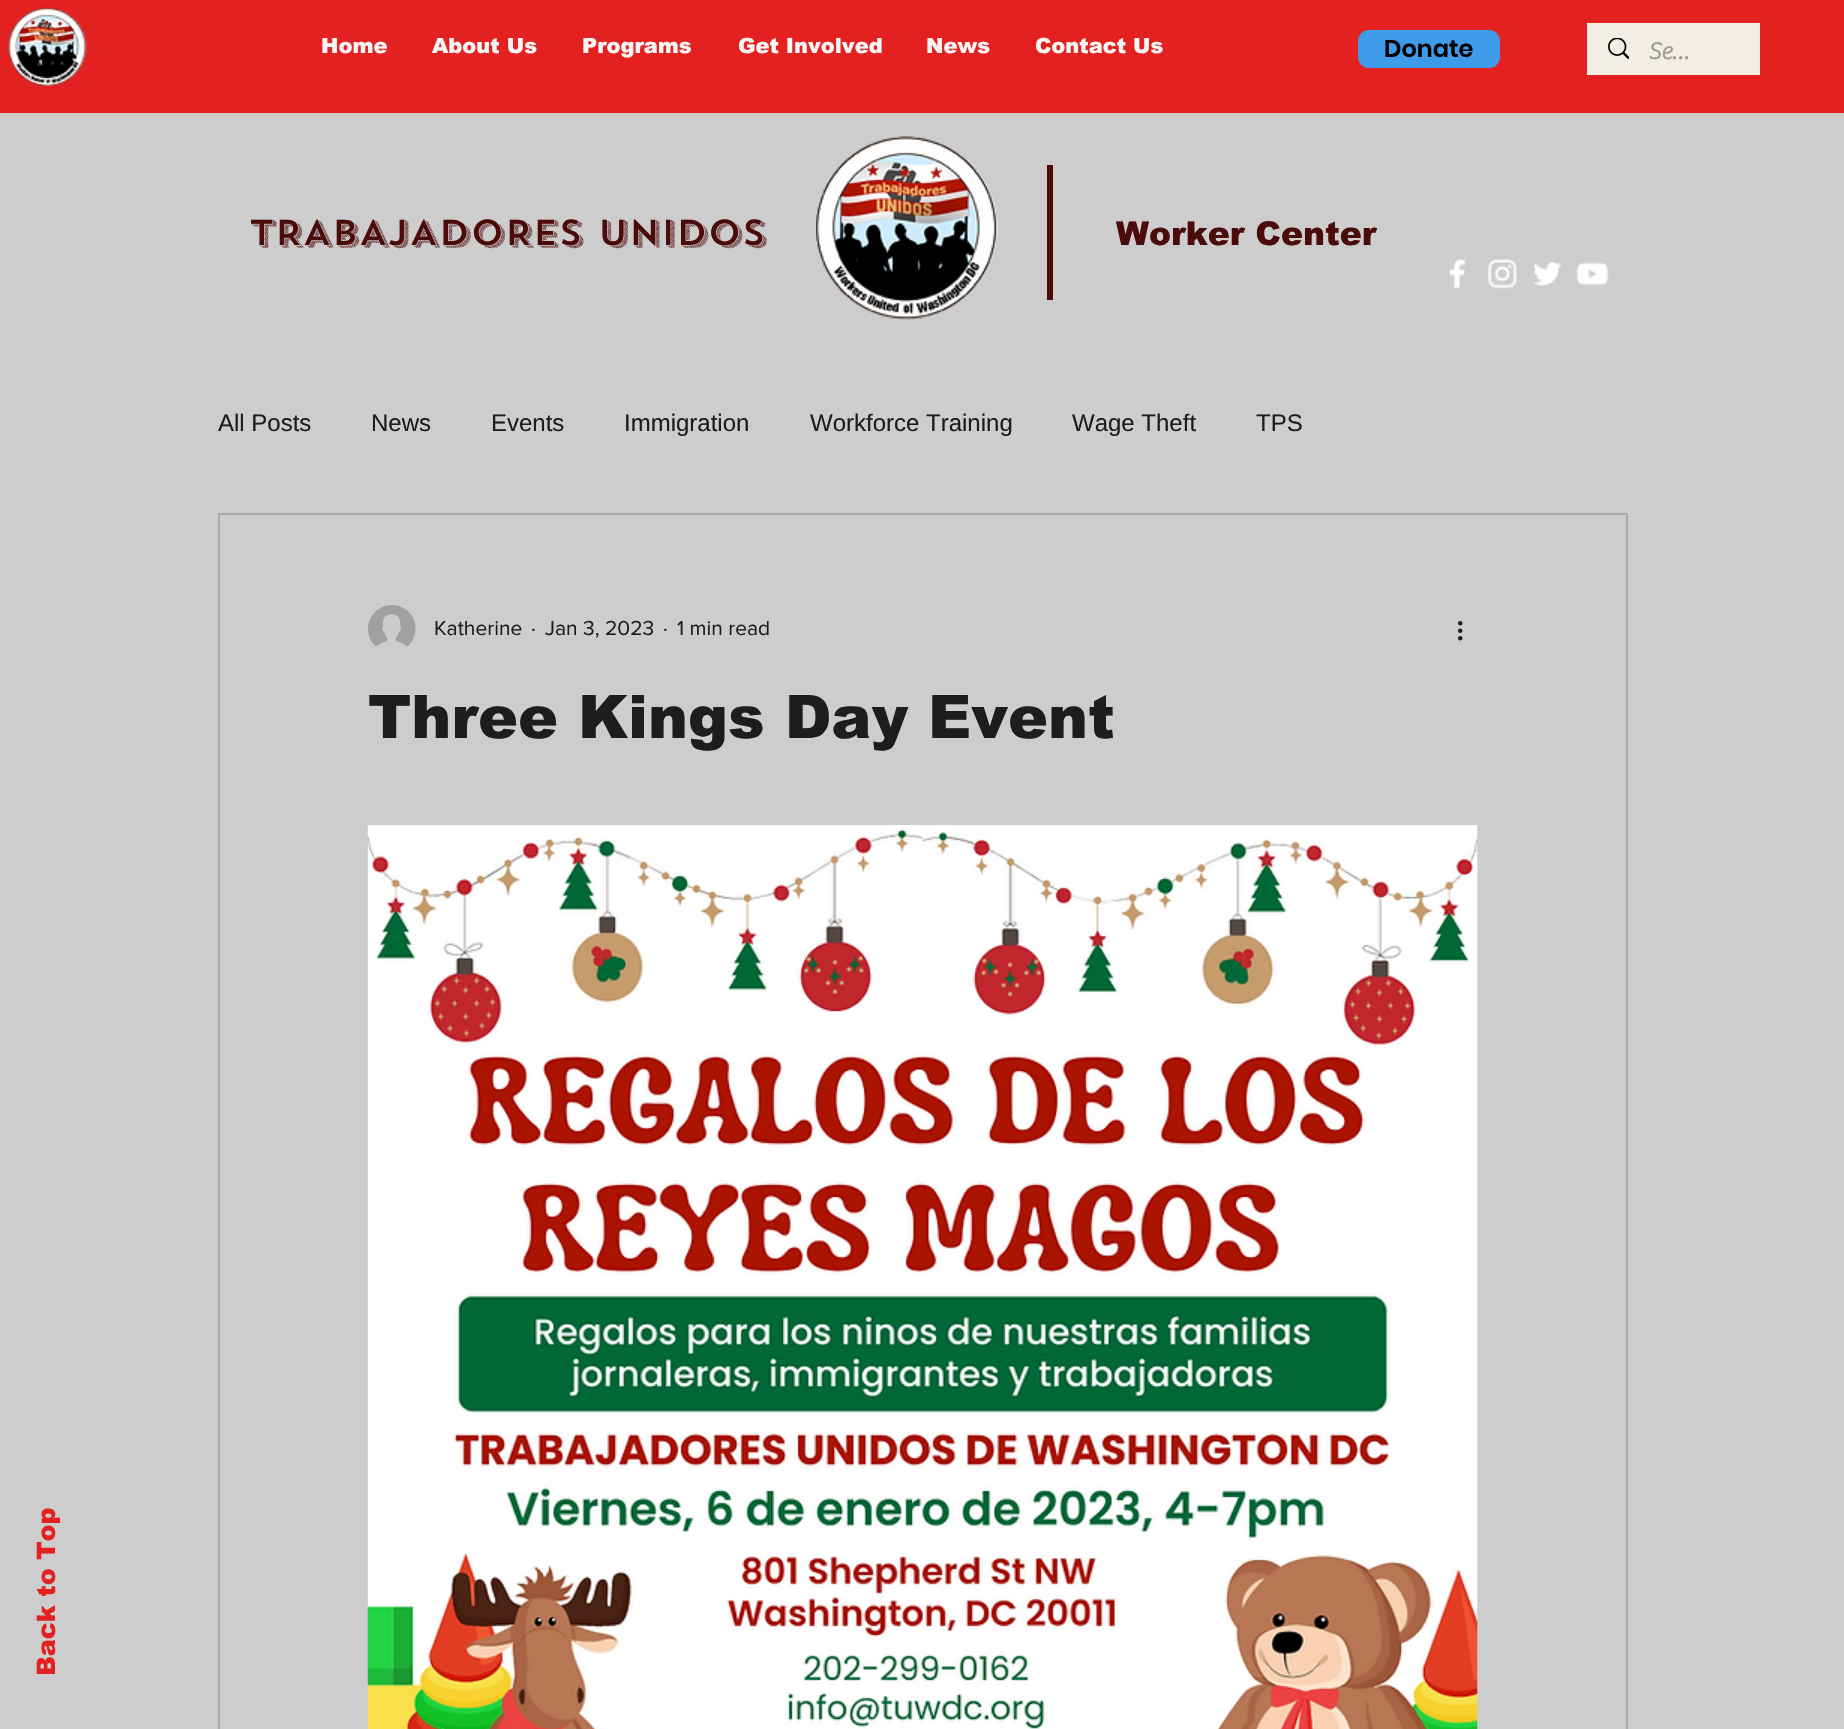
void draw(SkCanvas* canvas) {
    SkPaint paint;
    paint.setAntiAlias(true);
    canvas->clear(0xFFCECDCD);
    paint.setColor(0xFFE42121);
    canvas->drawRect(SkRect::MakeXYWH(0, 0, 1844, 113), paint);
    canvas->drawImageRect(SkImages::DeferredFromEncodedData(SkData::MakeFromFileName("img1.png")), SkRect::MakeXYWH(7, 7, 81, 80), SkSamplingOptions());
    SkFont font1(fontMgr->matchFamilyStyle("arial", SkFontStyle(900, SkFontStyle::kNormal_Width, SkFontStyle::kUpright_Slant)), 21);
    font1.setSubpixel(true);
    paint.setColor(0xFFF5F5F5);
    canvas->drawString("Home", 321, 53, font1, paint);
    canvas->drawString("About Us", 432, 53, font1, paint);
    canvas->drawString("Programs", 582, 53, font1, paint);
    canvas->drawString("Get Involved", 738, 53, font1, paint);
    canvas->drawString("News", 926, 53, font1, paint);
    canvas->drawString("Contact Us", 1035, 53, font1, paint);
    paint.setColor(0xFF3D9BE9);
    canvas->drawRoundRect(SkRect::MakeXYWH(1358, 30, 142, 38), 11, 11, paint);
    SkFont font2(fontMgr->matchFamilyStyle("Poppins", SkFontStyle(600, SkFontStyle::kNormal_Width, SkFontStyle::kUpright_Slant)), 24);
    font2.setSubpixel(true);
    paint.setColor(0xFF000000);
    canvas->drawString("Donate", 1384, 57, font2, paint);
    paint.setColor(0xFFF2EEE4);
    canvas->drawRect(SkRect::MakeXYWH(1587, 23, 173, 52), paint);
    canvas->drawImageRect(SkImages::DeferredFromEncodedData(SkData::MakeFromFileName("img2.png")), SkRect::MakeXYWH(1608, 38, 21, 21), SkSamplingOptions());
    SkFont font3(fontMgr->matchFamilyStyle("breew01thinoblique", SkFontStyle::Bold()), 24);
    font3.setSubpixel(true);
    paint.setColor(0xFF999999);
    canvas->drawString("Se…", 1648, 59, font3, paint);
    SkFont font4(fontMgr->matchFamilyStyle("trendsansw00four", SkFontStyle(500, SkFontStyle::kNormal_Width, SkFontStyle::kUpright_Slant)), 36);
    font4.setSubpixel(true);
    paint.setColor(0xFF4C0B0B);
    canvas->drawString("TRABAJADORES UNIDOS", 249, 245, font4, paint);
    canvas->drawImageRect(SkImages::DeferredFromEncodedData(SkData::MakeFromFileName("img3.png")), SkRect::MakeXYWH(816, 136, 182, 184), SkSamplingOptions());
    canvas->drawRect(SkRect::MakeXYWH(1047, 165, 6, 135), paint);
    SkFont font5(fontMgr->matchFamilyStyle("arial", SkFontStyle(900, SkFontStyle::kNormal_Width, SkFontStyle::kUpright_Slant)), 33);
    font5.setSubpixel(true);
    canvas->drawString("Worker Center", 1116, 245, font5, paint);
    canvas->drawImageRect(SkImages::DeferredFromEncodedData(SkData::MakeFromFileName("img4.png")), SkRect::MakeXYWH(1449, 259, 17, 30), SkSamplingOptions());
    canvas->drawImageRect(SkImages::DeferredFromEncodedData(SkData::MakeFromFileName("img5.png")), SkRect::MakeXYWH(1487, 259, 30, 30), SkSamplingOptions());
    canvas->drawImageRect(SkImages::DeferredFromEncodedData(SkData::MakeFromFileName("img6.png")), SkRect::MakeXYWH(1533, 261, 29, 26), SkSamplingOptions());
    canvas->drawImageRect(SkImages::DeferredFromEncodedData(SkData::MakeFromFileName("img7.png")), SkRect::MakeXYWH(1576, 262, 33, 24), SkSamplingOptions());
    SkFont font6(fontMgr->matchFamilyStyle("Liberation Sans", SkFontStyle::Normal()), 24);
    font6.setSubpixel(true);
    paint.setColor(0xFF1E1D1D);
    canvas->drawString("All Posts", 218, 431, font6, paint);
    canvas->drawString("News", 371, 431, font6, paint);
    canvas->drawString("Events", 491, 431, font6, paint);
    canvas->drawString("Immigration", 624, 431, font6, paint);
    canvas->drawString("Workforce Training", 810, 431, font6, paint);
    canvas->drawString("Wage Theft", 1072, 431, font6, paint);
    canvas->drawString("TPS", 1256, 431, font6, paint);
    paint.setStyle(SkPaint::kStroke_Style);
    paint.setStrokeWidth(2);
    paint.setColor(0xFFAAA8A8);
    canvas->drawRect(SkRect::MakeXYWH(219, 514, 1408, 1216), paint);
    canvas->drawImageRect(SkImages::DeferredFromEncodedData(SkData::MakeFromFileName("img8.png")), SkRect::MakeXYWH(368, 605, 48, 42), SkSamplingOptions());
    SkFont font7(fontMgr->matchFamilyStyle("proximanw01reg", SkFontStyle::Normal()), 21);
    font7.setSubpixel(true);
    paint.setStyle(SkPaint::kFill_Style);
    paint.setColor(0xFF1E1D1D);
    canvas->drawString("Katherine", 434, 635, font7, paint);
    canvas->drawString("·", 531, 635, font7, paint);
    canvas->drawString("Jan 3, 2023", 545, 635, font7, paint);
    canvas->drawString("·", 663, 635, font7, paint);
    canvas->drawString("1 min read", 677, 635, font7, paint);
    canvas->drawImageRect(SkImages::DeferredFromEncodedData(SkData::MakeFromFileName("img9.png")), SkRect::MakeXYWH(1458, 621, 5, 20), SkSamplingOptions());
    SkFont font8(fontMgr->matchFamilyStyle("arial", SkFontStyle(900, SkFontStyle::kNormal_Width, SkFontStyle::kUpright_Slant)), 60);
    font8.setSubpixel(true);
    canvas->drawString("Three Kings Day Event", 368, 738, font8, paint);
    canvas->drawImageRect(SkImages::DeferredFromEncodedData(SkData::MakeFromFileName("img10.png")), SkRect::MakeXYWH(367, 825, 1111, 904), SkSamplingOptions());
    SkFont font9(fontMgr->matchFamilyStyle("arial", SkFontStyle(900, SkFontStyle::kNormal_Width, SkFontStyle::kUpright_Slant)), 25.5f);
    font9.setSubpixel(true);
    paint.setColor(0xFFE42121);
    canvas->save();
    canvas->rotate(-90, 55, 1676);
    canvas->drawString("Back to Top", 55, 1676, font9, paint);
    canvas->restore();
}
